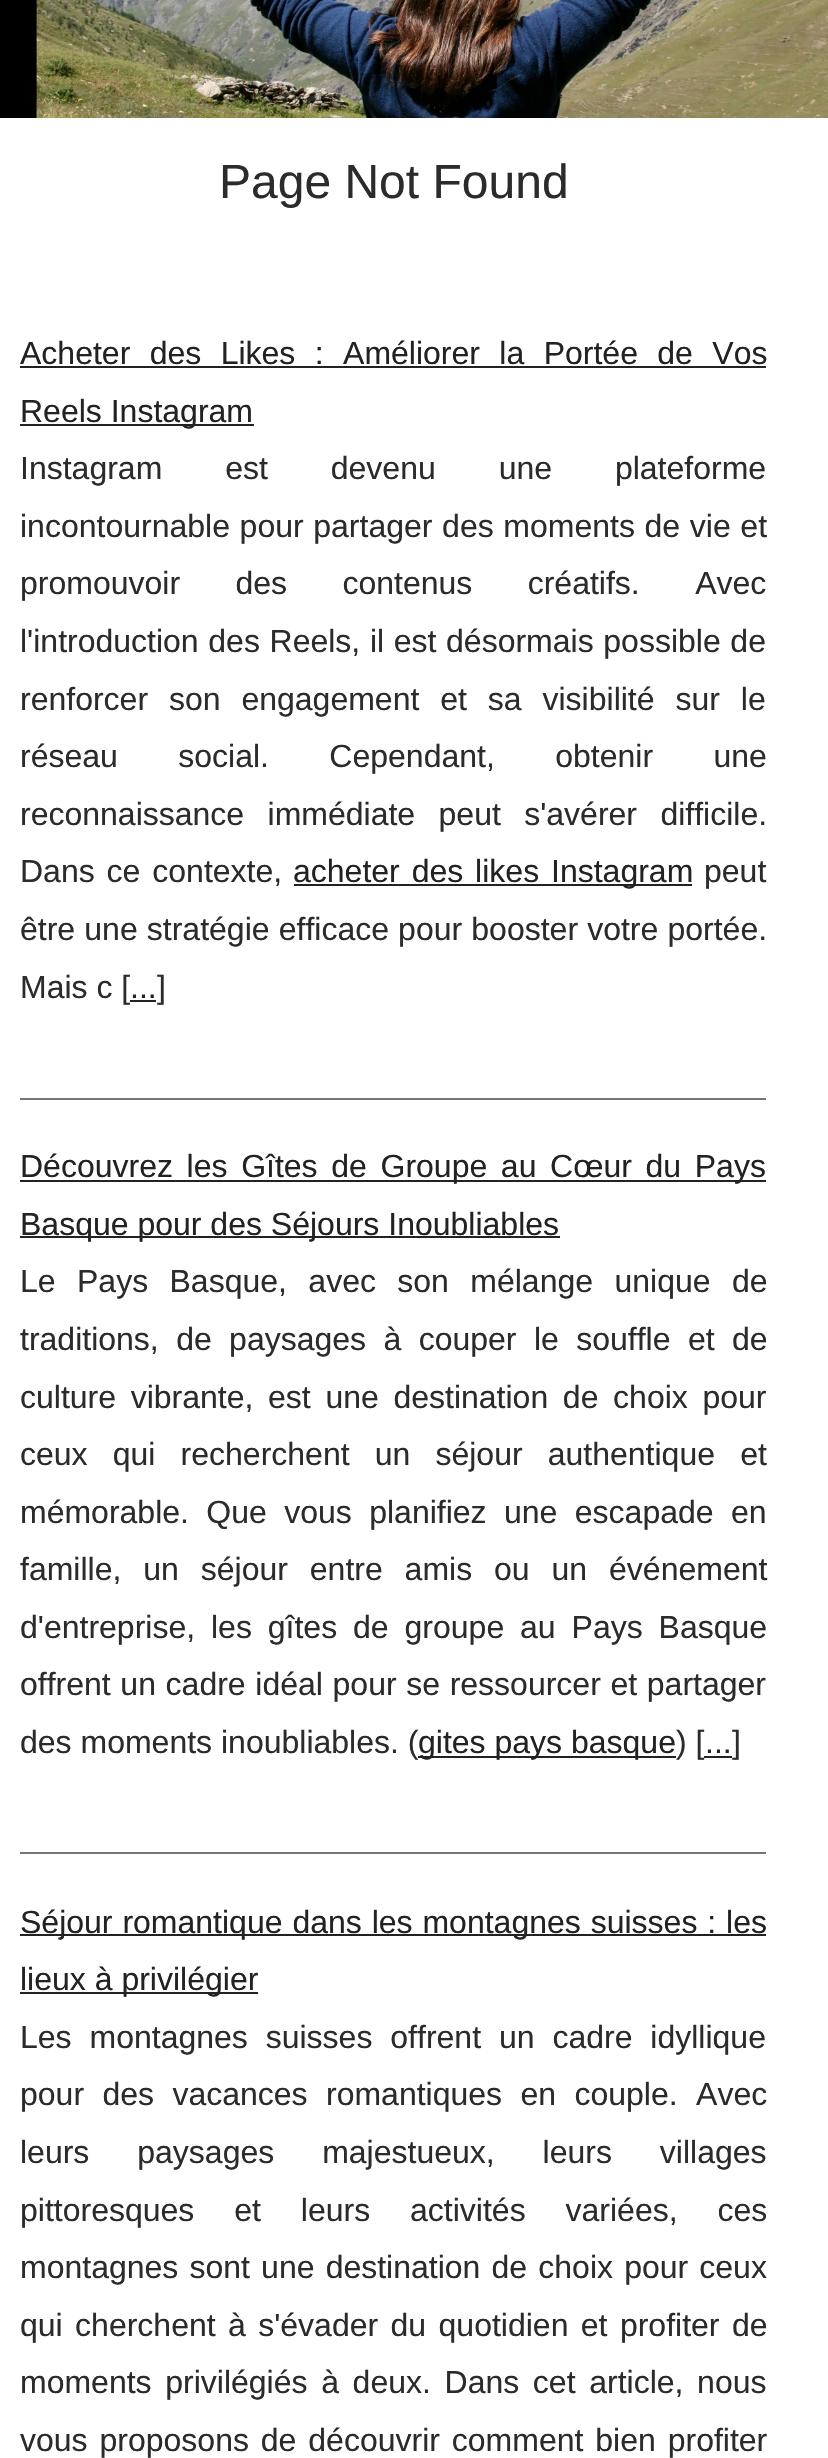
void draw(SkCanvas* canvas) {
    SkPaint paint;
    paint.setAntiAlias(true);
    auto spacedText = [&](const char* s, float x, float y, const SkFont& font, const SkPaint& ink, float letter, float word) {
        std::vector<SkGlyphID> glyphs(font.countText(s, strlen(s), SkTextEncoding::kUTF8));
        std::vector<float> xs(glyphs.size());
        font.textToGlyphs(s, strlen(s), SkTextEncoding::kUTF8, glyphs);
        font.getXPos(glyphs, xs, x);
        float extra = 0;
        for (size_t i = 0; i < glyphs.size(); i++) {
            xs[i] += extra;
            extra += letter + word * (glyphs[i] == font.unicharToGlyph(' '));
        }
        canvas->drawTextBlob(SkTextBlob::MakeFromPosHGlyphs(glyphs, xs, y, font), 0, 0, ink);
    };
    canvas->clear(0xFFFFFFFF);
    canvas->drawImageRect(SkImages::DeferredFromEncodedData(SkData::MakeFromFileName("img1.png")), SkRect::MakeXYWH(0, 0, 828, 118), SkSamplingOptions());
    SkFont font1(fontMgr->matchFamilyStyle("Liberation Sans", SkFontStyle::Normal()), 48);
    font1.setSubpixel(true);
    paint.setColor(0xFF2B2B2B);
    canvas->drawString("Page Not Found", 219, 198, font1, paint);
    SkFont font2(fontMgr->matchFamilyStyle("Liberation Sans", SkFontStyle::Normal()), 32);
    font2.setSubpixel(true);
    paint.setColor(0xFF222222);
    spacedText("Acheter des Likes : Améliorer la Portée de Vos", 20, 364, font2, paint, 0, 10.5f);
    canvas->drawRect(SkRect::MakeXYWH(20, 366, 746, 2), paint);
    canvas->drawRect(SkRect::MakeXYWH(20, 424, 234, 2), paint);
    canvas->drawString("Reels Instagram", 20, 422, font2, paint);
    paint.setColor(0xFF2B2B2B);
    spacedText("Instagram est devenu une plateforme", 20, 479, font2, paint, 0, 54);
    spacedText("incontournable pour partager des moments de vie et", 20, 537, font2, paint, 0, 0.75f);
    spacedText("promouvoir des contenus créatifs. Avec", 20, 594, font2, paint, 0, 46.5f);
    spacedText("l'introduction des Reels, il est désormais possible de", 20, 652, font2, paint, 0, 0.75f);
    spacedText("renforcer son engagement et sa visibilité sur le", 20, 710, font2, paint, 0, 12);
    spacedText("réseau social. Cependant, obtenir une", 20, 767, font2, paint, 0, 51.5f);
    spacedText("reconnaissance immédiate peut s'avérer difficile.", 20, 825, font2, paint, 0, 14.5f);
    spacedText("Dans ce contexte,", 20, 882, font2, paint, 0, 3);
    paint.setColor(0xFF222222);
    canvas->drawRect(SkRect::MakeXYWH(294, 884, 398, 2), paint);
    spacedText("acheter des likes Instagram", 293, 882, font2, paint, 0, 3);
    paint.setColor(0xFF2B2B2B);
    canvas->drawString("peut", 704, 882, font2, paint);
    spacedText("être une stratégie efficace pour booster votre portée.", 20, 940, font2, paint, 0, 0.25f);
    canvas->drawString("Mais c [", 20, 998, font2, paint);
    paint.setColor(0xFF222222);
    canvas->drawString("...", 130, 998, font2, paint);
    canvas->drawRect(SkRect::MakeXYWH(130, 1000, 26, 2), paint);
    paint.setColor(0xFF2B2B2B);
    canvas->drawString("]", 157, 998, font2, paint);
    paint.setColor(0xFF757575);
    canvas->drawRect(SkRect::MakeXYWH(20, 1098, 746, 2), paint);
    paint.setColor(0xFF222222);
    canvas->drawRect(SkRect::MakeXYWH(20, 1180, 746, 2), paint);
    spacedText("Découvrez les Gîtes de Groupe au Cœur du Pays", 20, 1177, font2, paint, 0, 4.75f);
    canvas->drawRect(SkRect::MakeXYWH(20, 1236, 540, 2), paint);
    canvas->drawString("Basque pour des Séjours Inoubliables", 20, 1235, font2, paint);
    paint.setColor(0xFF2B2B2B);
    spacedText("Le Pays Basque, avec son mélange unique de", 20, 1292, font2, paint, 0, 12.5f);
    spacedText("traditions, de paysages à couper le souffle et de", 20, 1350, font2, paint, 0, 8.5f);
    spacedText("culture vibrante, est une destination de choix pour", 20, 1408, font2, paint, 0, 5.75f);
    spacedText("ceux qui recherchent un séjour authentique et", 20, 1465, font2, paint, 0, 16.25f);
    spacedText("mémorable. Que vous planifiez une escapade en", 20, 1523, font2, paint, 0, 8.5f);
    spacedText("famille, un séjour entre amis ou un événement", 20, 1580, font2, paint, 0, 13);
    spacedText("d'entreprise, les gîtes de groupe au Pays Basque", 20, 1638, font2, paint, 0, 7);
    spacedText("offrent un cadre idéal pour se ressourcer et partager", 20, 1695, font2, paint, 0, 0.75f);
    canvas->drawString("des moments inoubliables. (", 20, 1753, font2, paint);
    paint.setColor(0xFF222222);
    canvas->drawRect(SkRect::MakeXYWH(418, 1756, 258, 2), paint);
    canvas->drawString("gites pays basque", 418, 1753, font2, paint);
    paint.setColor(0xFF2B2B2B);
    canvas->drawString(") [", 676, 1753, font2, paint);
    paint.setColor(0xFF222222);
    canvas->drawString("...", 705, 1753, font2, paint);
    canvas->drawRect(SkRect::MakeXYWH(704, 1756, 28, 2), paint);
    paint.setColor(0xFF2B2B2B);
    canvas->drawString("]", 732, 1753, font2, paint);
    paint.setColor(0xFF757575);
    canvas->drawRect(SkRect::MakeXYWH(20, 1852, 746, 2), paint);
    paint.setColor(0xFF222222);
    canvas->drawRect(SkRect::MakeXYWH(20, 1934, 746, 2), paint);
    spacedText("Séjour romantique dans les montagnes suisses : les", 20, 1933, font2, paint, 0, 1);
    canvas->drawRect(SkRect::MakeXYWH(20, 1992, 238, 2), paint);
    canvas->drawString("lieux à privilégier", 20, 1990, font2, paint);
    paint.setColor(0xFF2B2B2B);
    spacedText("Les montagnes suisses offrent un cadre idyllique", 20, 2048, font2, paint, 0, 9);
    spacedText("pour des vacances romantiques en couple. Avec", 20, 2105, font2, paint, 0, 9.5f);
    spacedText("leurs paysages majestueux, leurs villages", 20, 2163, font2, paint, 0, 39);
    spacedText("pittoresques et leurs activités variées, ces", 20, 2221, font2, paint, 0, 31);
    spacedText("montagnes sont une destination de choix pour ceux", 20, 2278, font2, paint, 0, 2.25f);
    spacedText("qui cherchent à s'évader du quotidien et profiter de", 20, 2336, font2, paint, 0, 3.5f);
    spacedText("moments privilégiés à deux. Dans cet article, nous", 20, 2393, font2, paint, 0, 4.75f);
    spacedText("vous proposons de découvrir comment bien profiter", 20, 2451, font2, paint, 0, 3);
}
